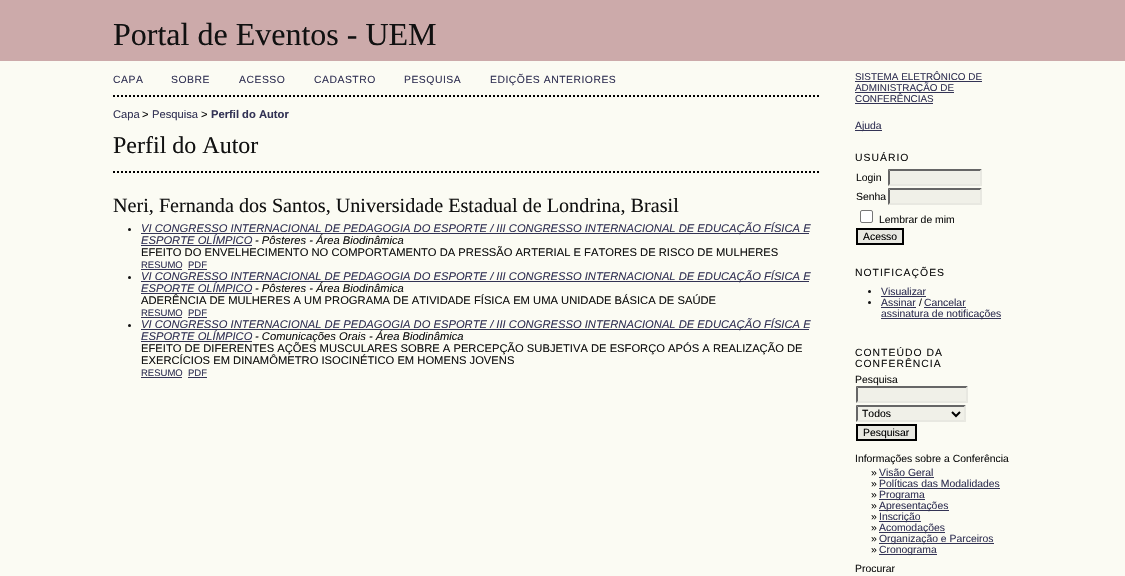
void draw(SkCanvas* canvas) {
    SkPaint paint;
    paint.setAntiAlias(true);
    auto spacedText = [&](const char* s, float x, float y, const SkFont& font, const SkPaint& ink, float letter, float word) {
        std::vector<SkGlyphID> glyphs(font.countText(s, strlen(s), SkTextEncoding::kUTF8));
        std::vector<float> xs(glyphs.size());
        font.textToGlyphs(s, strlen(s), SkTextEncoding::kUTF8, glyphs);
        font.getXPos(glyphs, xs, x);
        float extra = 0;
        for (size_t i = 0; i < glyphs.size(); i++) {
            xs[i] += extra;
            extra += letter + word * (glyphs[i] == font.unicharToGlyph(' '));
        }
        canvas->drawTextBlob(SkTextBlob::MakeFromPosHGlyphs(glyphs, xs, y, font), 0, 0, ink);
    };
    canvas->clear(0xFFFBFBF3);
    paint.setColor(0xFFCCAAAA);
    canvas->drawRect(SkRect::MakeXYWH(0, 0, 1125, 61), paint);
    SkFont font1(fontMgr->matchFamilyStyle("Liberation Serif", SkFontStyle::Normal()), 32);
    font1.setSubpixel(true);
    paint.setColor(0xFF111111);
    canvas->drawString("Portal de Eventos - UEM", 113, 45, font1, paint);
    paint.setStyle(SkPaint::kStroke_Style);
    paint.setStrokeWidth(2);
    paint.setColor(0xFF000000);
    paint.setPathEffect(SkDashPathEffect::Make({{2, 2}}, 0));
    canvas->drawPath(SkPathBuilder().moveTo(113, 96).lineTo(821, 96).detach(), paint);
    paint.setPathEffect(nullptr);
    SkFont font2(fontMgr->matchFamilyStyle("Liberation Sans", SkFontStyle::Normal()), 10.4f);
    font2.setSubpixel(true);
    paint.setStyle(SkPaint::kFill_Style);
    paint.setColor(0xFF333355);
    spacedText("CAPA", 113, 83, font2, paint, 0.5f, 0);
    spacedText("SOBRE", 171, 83, font2, paint, 0.5f, 0);
    spacedText("ACESSO", 239, 83, font2, paint, 0.5f, 0);
    spacedText("CADASTRO", 314, 83, font2, paint, 0.5f, 0);
    spacedText("PESQUISA", 404, 83, font2, paint, 0.5f, 0);
    spacedText("EDIÇÕES ANTERIORES", 490, 83, font2, paint, 0.5f, 0);
    SkFont font3(fontMgr->matchFamilyStyle("Liberation Sans", SkFontStyle::Normal()), 11.2f);
    font3.setSubpixel(true);
    canvas->drawString("Capa", 113, 118, font3, paint);
    paint.setColor(0xFF111111);
    canvas->drawString(">", 142, 118, font3, paint);
    paint.setColor(0xFF333355);
    canvas->drawString("Pesquisa", 152, 118, font3, paint);
    paint.setColor(0xFF111111);
    canvas->drawString(">", 201, 118, font3, paint);
    SkFont font4(fontMgr->matchFamilyStyle("Liberation Sans", SkFontStyle::Bold()), 11.2f);
    font4.setSubpixel(true);
    paint.setColor(0xFF333355);
    canvas->drawString("Perfil do Autor", 211, 118, font4, paint);
    SkFont font5(fontMgr->matchFamilyStyle("Liberation Serif", SkFontStyle::Normal()), 24);
    font5.setSubpixel(true);
    paint.setColor(0xFF111111);
    canvas->drawString("Perfil do Autor", 113, 153, font5, paint);
    paint.setStyle(SkPaint::kStroke_Style);
    paint.setColor(0xFF000000);
    paint.setPathEffect(SkDashPathEffect::Make({{2, 2}}, 0));
    canvas->drawPath(SkPathBuilder().moveTo(113, 172).lineTo(821, 172).detach(), paint);
    paint.setPathEffect(nullptr);
    SkFont font6(fontMgr->matchFamilyStyle("Liberation Serif", SkFontStyle::Normal()), 20.15f);
    font6.setSubpixel(true);
    paint.setStyle(SkPaint::kFill_Style);
    paint.setColor(0xFF111111);
    canvas->drawString("Neri, Fernanda dos Santos, Universidade Estadual de Londrina, Brasil", 113, 212, font6, paint);
    canvas->drawCircle(129.5f, 229.5f, 1.5f, paint);
    paint.setColor(0xFF333355);
    canvas->drawRect(SkRect::MakeXYWH(141, 233, 668, 1), paint);
    SkFont font7(fontMgr->matchFamilyStyle("Liberation Sans", SkFontStyle::Italic()), 11.2f);
    font7.setSubpixel(true);
    canvas->drawString("VI CONGRESSO INTERNACIONAL DE PEDAGOGIA DO ESPORTE / III CONGRESSO INTERNACIONAL DE EDUCAÇÃO FÍSICA E", 141, 232, font7, paint);
    canvas->drawString("ESPORTE OLÍMPICO", 141, 244, font7, paint);
    canvas->drawRect(SkRect::MakeXYWH(141, 245, 111, 1), paint);
    paint.setColor(0xFF111111);
    canvas->drawString("- Pôsteres - Área Biodinâmica", 255, 244, font7, paint);
    canvas->drawString("EFEITO DO ENVELHECIMENTO NO COMPORTAMENTO DA PRESSÃO ARTERIAL E FATORES DE RISCO DE MULHERES", 141, 256, font3, paint);
    SkFont font8(fontMgr->matchFamilyStyle("Liberation Sans", SkFontStyle::Normal()), 9.5f);
    font8.setSubpixel(true);
    paint.setColor(0xFF333355);
    canvas->drawString("RESUMO", 141, 268, font8, paint);
    canvas->drawRect(SkRect::MakeXYWH(141, 269, 41, 1), paint);
    canvas->drawString("PDF", 188, 268, font8, paint);
    canvas->drawRect(SkRect::MakeXYWH(188, 269, 19, 1), paint);
    paint.setColor(0xFF111111);
    canvas->drawCircle(129.5f, 277.5f, 1.5f, paint);
    paint.setColor(0xFF333355);
    canvas->drawRect(SkRect::MakeXYWH(141, 281, 668, 1), paint);
    canvas->drawString("VI CONGRESSO INTERNACIONAL DE PEDAGOGIA DO ESPORTE / III CONGRESSO INTERNACIONAL DE EDUCAÇÃO FÍSICA E", 141, 280, font7, paint);
    canvas->drawString("ESPORTE OLÍMPICO", 141, 292, font7, paint);
    canvas->drawRect(SkRect::MakeXYWH(141, 293, 111, 1), paint);
    paint.setColor(0xFF111111);
    canvas->drawString("- Pôsteres - Área Biodinâmica", 255, 292, font7, paint);
    canvas->drawString("ADERÊNCIA DE MULHERES A UM PROGRAMA DE ATIVIDADE FÍSICA EM UMA UNIDADE BÁSICA DE SAÚDE", 141, 304, font3, paint);
    paint.setColor(0xFF333355);
    canvas->drawString("RESUMO", 141, 316, font8, paint);
    canvas->drawRect(SkRect::MakeXYWH(141, 317, 41, 1), paint);
    canvas->drawString("PDF", 188, 316, font8, paint);
    canvas->drawRect(SkRect::MakeXYWH(188, 317, 19, 1), paint);
    paint.setColor(0xFF111111);
    canvas->drawCircle(129.5f, 325.5f, 1.5f, paint);
    paint.setColor(0xFF333355);
    canvas->drawRect(SkRect::MakeXYWH(141, 329, 668, 1), paint);
    canvas->drawString("VI CONGRESSO INTERNACIONAL DE PEDAGOGIA DO ESPORTE / III CONGRESSO INTERNACIONAL DE EDUCAÇÃO FÍSICA E", 141, 328, font7, paint);
    canvas->drawString("ESPORTE OLÍMPICO", 141, 340, font7, paint);
    canvas->drawRect(SkRect::MakeXYWH(141, 341, 111, 1), paint);
    paint.setColor(0xFF111111);
    canvas->drawString("- Comunicações Orais - Área Biodinâmica", 255, 340, font7, paint);
    canvas->drawString("EFEITO DE DIFERENTES AÇÕES MUSCULARES SOBRE A PERCEPÇÃO SUBJETIVA DE ESFORÇO APÓS A REALIZAÇÃO DE", 141, 352, font3, paint);
    canvas->drawString("EXERCÍCIOS EM DINAMÔMETRO ISOCINÉTICO EM HOMENS JOVENS", 141, 364, font3, paint);
    paint.setColor(0xFF333355);
    canvas->drawString("RESUMO", 141, 376, font8, paint);
    canvas->drawRect(SkRect::MakeXYWH(141, 377, 41, 1), paint);
    canvas->drawString("PDF", 188, 376, font8, paint);
    canvas->drawRect(SkRect::MakeXYWH(188, 377, 19, 1), paint);
    SkFont font9(fontMgr->matchFamilyStyle("Liberation Sans", SkFontStyle::Normal()), 9.9f);
    font9.setSubpixel(true);
    canvas->drawString("SISTEMA ELETRÔNICO DE", 855, 80, font9, paint);
    canvas->drawRect(SkRect::MakeXYWH(855, 81, 127, 1), paint);
    canvas->drawRect(SkRect::MakeXYWH(855, 92, 99, 1), paint);
    canvas->drawString("ADMINISTRAÇÃO DE", 855, 91, font9, paint);
    canvas->drawString("CONFERÊNCIAS", 855, 102, font9, paint);
    canvas->drawRect(SkRect::MakeXYWH(855, 103, 78, 1), paint);
    canvas->drawRect(SkRect::MakeXYWH(855, 130, 27, 1), paint);
    canvas->drawString("Ajuda", 855, 129, font2, paint);
    paint.setColor(0xFF111111);
    spacedText("USUÁRIO", 855, 161, font2, paint, 1, 0);
    canvas->drawString("Login", 856, 181, font2, paint);
    paint.setColor(0xFFF0F0E8);
    canvas->drawRect(SkRect::MakeXYWH(888, 169, 94, 17), paint);
    paint.setColor(0xFF666666);
    canvas->drawPath(SkPathBuilder().moveTo(888, 169).lineTo(982, 169).lineTo(980, 171).lineTo(890, 171).close().detach(), paint);
    paint.setColor(0xFFE8E8E1);
    canvas->drawPath(SkPathBuilder().moveTo(982, 169).lineTo(982, 186).lineTo(980, 184).lineTo(980, 171).close().detach(), paint);
    canvas->drawPath(SkPathBuilder().moveTo(982, 186).lineTo(888, 186).lineTo(890, 184).lineTo(980, 184).close().detach(), paint);
    paint.setColor(0xFF666666);
    canvas->drawPath(SkPathBuilder().moveTo(888, 186).lineTo(888, 169).lineTo(890, 171).lineTo(890, 184).close().detach(), paint);
    paint.setColor(0xFF111111);
    canvas->drawString("Senha", 856, 200, font2, paint);
    paint.setColor(0xFFF0F0E8);
    canvas->drawRect(SkRect::MakeXYWH(888, 188, 94, 17), paint);
    paint.setColor(0xFF666666);
    canvas->drawPath(SkPathBuilder().moveTo(888, 188).lineTo(982, 188).lineTo(980, 190).lineTo(890, 190).close().detach(), paint);
    paint.setColor(0xFFE8E8E1);
    canvas->drawPath(SkPathBuilder().moveTo(982, 188).lineTo(982, 205).lineTo(980, 203).lineTo(980, 190).close().detach(), paint);
    canvas->drawPath(SkPathBuilder().moveTo(982, 205).lineTo(888, 205).lineTo(890, 203).lineTo(980, 203).close().detach(), paint);
    paint.setColor(0xFF666666);
    canvas->drawPath(SkPathBuilder().moveTo(888, 205).lineTo(888, 188).lineTo(890, 190).lineTo(890, 203).close().detach(), paint);
    paint.setColor(0xFFFFFFFF);
    canvas->drawRoundRect(SkRect::MakeXYWH(860.5f, 210.5f, 12, 12), 1.5f, 1.5f, paint);
    paint.setStyle(SkPaint::kStroke_Style);
    paint.setStrokeWidth(1);
    paint.setColor(0xFF767676);
    canvas->drawRoundRect(SkRect::MakeXYWH(860.5f, 210.5f, 12, 12), 1.5f, 1.5f, paint);
    paint.setStyle(SkPaint::kFill_Style);
    paint.setColor(0xFF111111);
    canvas->drawString("Lembrar de mim", 879, 223, font2, paint);
    paint.setColor(0xFFE8E8E1);
    canvas->drawRect(SkRect::MakeXYWH(857, 229, 46, 15), paint);
    paint.setStyle(SkPaint::kStroke_Style);
    paint.setStrokeWidth(2);
    paint.setColor(0xFF000000);
    canvas->drawRect(SkRect::MakeXYWH(857, 229, 46, 15), paint);
    paint.setStyle(SkPaint::kFill_Style);
    canvas->drawString("Acesso", 863, 240, font2, paint);
    paint.setColor(0xFF111111);
    spacedText("NOTIFICAÇÕES", 855, 276, font2, paint, 1, 0);
    canvas->drawCircle(869.5f, 291.5f, 1.5f, paint);
    paint.setColor(0xFF333355);
    canvas->drawString("Visualizar", 881, 295, font2, paint);
    canvas->drawRect(SkRect::MakeXYWH(881, 296, 45, 1), paint);
    paint.setColor(0xFF111111);
    canvas->drawCircle(869.5f, 302.5f, 1.5f, paint);
    paint.setColor(0xFF333355);
    canvas->drawString("Assinar", 881, 306, font2, paint);
    canvas->drawRect(SkRect::MakeXYWH(881, 307, 35, 1), paint);
    paint.setColor(0xFF111111);
    canvas->drawString("/", 919, 306, font2, paint);
    paint.setColor(0xFF333355);
    canvas->drawString("Cancelar", 924, 306, font2, paint);
    canvas->drawRect(SkRect::MakeXYWH(924, 307, 42, 1), paint);
    canvas->drawRect(SkRect::MakeXYWH(881, 318, 120, 1), paint);
    canvas->drawString("assinatura de notificações", 881, 317, font2, paint);
    paint.setColor(0xFF111111);
    spacedText("CONTEÚDO DA", 855, 356, font2, paint, 1, 0);
    spacedText("CONFERÊNCIA", 855, 367, font2, paint, 1, 0);
    canvas->drawString("Pesquisa", 855, 383, font2, paint);
    paint.setColor(0xFFF0F0E8);
    canvas->drawRect(SkRect::MakeXYWH(856, 386, 112, 17), paint);
    paint.setColor(0xFF666666);
    canvas->drawPath(SkPathBuilder().moveTo(856, 386).lineTo(968, 386).lineTo(966, 388).lineTo(858, 388).close().detach(), paint);
    paint.setColor(0xFFE8E8E1);
    canvas->drawPath(SkPathBuilder().moveTo(968, 386).lineTo(968, 403).lineTo(966, 401).lineTo(966, 388).close().detach(), paint);
    canvas->drawPath(SkPathBuilder().moveTo(968, 403).lineTo(856, 403).lineTo(858, 401).lineTo(966, 401).close().detach(), paint);
    paint.setColor(0xFF666666);
    canvas->drawPath(SkPathBuilder().moveTo(856, 403).lineTo(856, 386).lineTo(858, 388).lineTo(858, 401).close().detach(), paint);
    paint.setColor(0xFFF0F0E8);
    canvas->drawRect(SkRect::MakeXYWH(856, 405, 110, 17), paint);
    paint.setColor(0xFF666666);
    canvas->drawPath(SkPathBuilder().moveTo(856, 405).lineTo(966, 405).lineTo(964, 407).lineTo(858, 407).close().detach(), paint);
    paint.setColor(0xFFE8E8E1);
    canvas->drawPath(SkPathBuilder().moveTo(966, 405).lineTo(966, 422).lineTo(964, 420).lineTo(964, 407).close().detach(), paint);
    canvas->drawPath(SkPathBuilder().moveTo(966, 422).lineTo(856, 422).lineTo(858, 420).lineTo(964, 420).close().detach(), paint);
    paint.setColor(0xFF666666);
    canvas->drawPath(SkPathBuilder().moveTo(856, 422).lineTo(856, 405).lineTo(858, 407).lineTo(858, 420).close().detach(), paint);
    paint.setStyle(SkPaint::kStroke_Style);
    paint.setColor(0xFF000000);
    canvas->drawPath(SkPathBuilder().moveTo(952, 412).lineTo(956, 416).lineTo(960, 412).detach(), paint);
    paint.setStyle(SkPaint::kFill_Style);
    canvas->drawString("Todos", 862, 417, font2, paint);
    paint.setColor(0xFFE8E8E1);
    canvas->drawRect(SkRect::MakeXYWH(857, 425, 59, 15), paint);
    paint.setStyle(SkPaint::kStroke_Style);
    paint.setColor(0xFF000000);
    canvas->drawRect(SkRect::MakeXYWH(857, 425, 59, 15), paint);
    paint.setStyle(SkPaint::kFill_Style);
    canvas->drawString("Pesquisar", 863, 436, font2, paint);
    paint.setColor(0xFF111111);
    canvas->drawString("Informações sobre a Conferência", 855, 462, font2, paint);
    canvas->drawString("»", 871, 476, font2, paint);
    paint.setColor(0xFF333355);
    canvas->drawString("Visão Geral", 879, 476, font2, paint);
    canvas->drawRect(SkRect::MakeXYWH(879, 477, 55, 1), paint);
    paint.setColor(0xFF111111);
    canvas->drawString("»", 871, 487, font2, paint);
    paint.setColor(0xFF333355);
    canvas->drawString("Políticas das Modalidades", 879, 487, font2, paint);
    canvas->drawRect(SkRect::MakeXYWH(879, 488, 121, 1), paint);
    paint.setColor(0xFF111111);
    canvas->drawString("»", 871, 498, font2, paint);
    paint.setColor(0xFF333355);
    canvas->drawRect(SkRect::MakeXYWH(879, 499, 46, 1), paint);
    canvas->drawString("Programa", 879, 498, font2, paint);
    paint.setColor(0xFF111111);
    canvas->drawString("»", 871, 509, font2, paint);
    paint.setColor(0xFF333355);
    canvas->drawRect(SkRect::MakeXYWH(879, 510, 70, 1), paint);
    canvas->drawString("Apresentações", 879, 509, font2, paint);
    paint.setColor(0xFF111111);
    canvas->drawString("»", 871, 520, font2, paint);
    paint.setColor(0xFF333355);
    canvas->drawRect(SkRect::MakeXYWH(879, 521, 42, 1), paint);
    canvas->drawString("Inscrição", 879, 520, font2, paint);
    paint.setColor(0xFF111111);
    canvas->drawString("»", 871, 531, font2, paint);
    paint.setColor(0xFF333355);
    canvas->drawRect(SkRect::MakeXYWH(879, 532, 66, 1), paint);
    canvas->drawString("Acomodações", 879, 531, font2, paint);
    paint.setColor(0xFF111111);
    canvas->drawString("»", 871, 542, font2, paint);
    paint.setColor(0xFF333355);
    canvas->drawRect(SkRect::MakeXYWH(879, 543, 115, 1), paint);
    canvas->drawString("Organização e Parceiros", 879, 542, font2, paint);
    paint.setColor(0xFF111111);
    canvas->drawString("»", 871, 553, font2, paint);
    paint.setColor(0xFF333355);
    canvas->drawRect(SkRect::MakeXYWH(879, 554, 58, 1), paint);
    canvas->drawString("Cronograma", 879, 553, font2, paint);
    paint.setColor(0xFF111111);
    canvas->drawString("Procurar", 855, 572, font2, paint);
}
